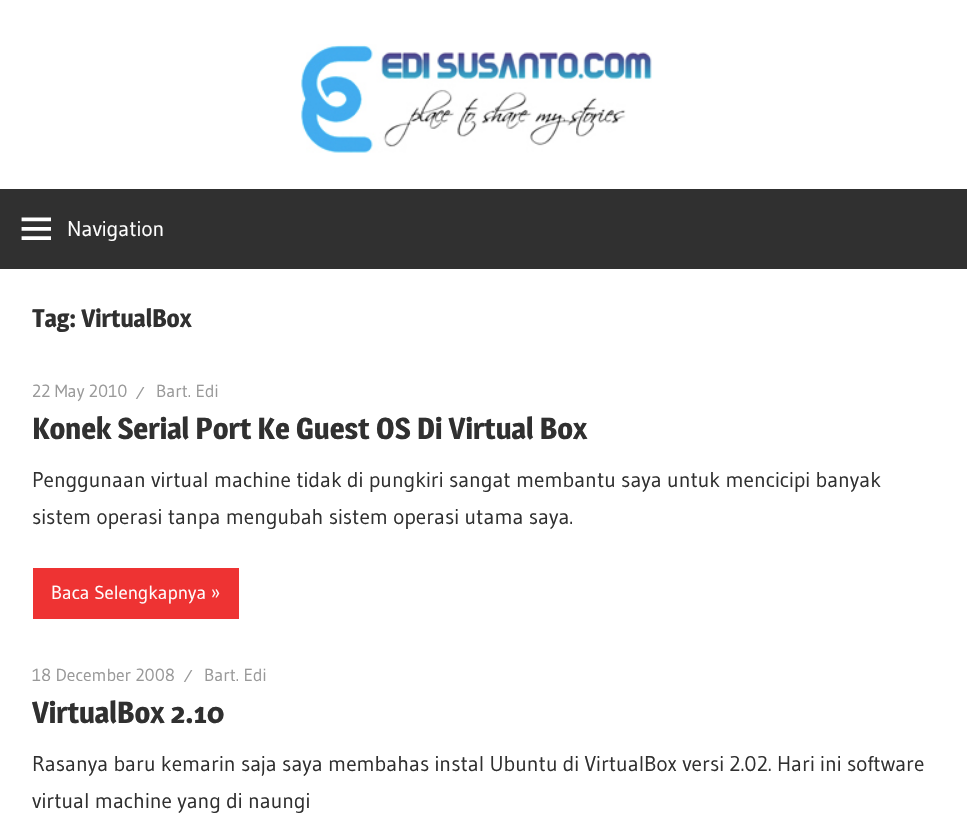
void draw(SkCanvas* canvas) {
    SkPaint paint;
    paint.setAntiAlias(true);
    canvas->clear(0xFFFFFFFF);
    canvas->drawImageRect(SkImages::DeferredFromEncodedData(SkData::MakeFromFileName("img1.png")), SkRect::MakeXYWH(301, 44, 351, 109), SkSamplingOptions());
    paint.setColor(0xFF303030);
    canvas->drawRect(SkRect::MakeXYWH(0, 189, 967, 80), paint);
    canvas->drawImageRect(SkImages::DeferredFromEncodedData(SkData::MakeFromFileName("img2.png")), SkRect::MakeXYWH(21, 217, 30, 23), SkSamplingOptions());
    SkFont font1(fontMgr->matchFamilyStyle("Gudea", SkFontStyle::Normal()), 21.25f);
    font1.setSubpixel(true);
    paint.setColor(0xFFFFFFFF);
    canvas->drawString("Navigation", 67, 236, font1, paint);
    SkFont font2(fontMgr->matchFamilyStyle("Magra", SkFontStyle::Bold()), 25);
    font2.setSubpixel(true);
    paint.setColor(0xFF303030);
    canvas->drawString("Tag: VirtualBox", 32, 327, font2, paint);
    SkFont font3(fontMgr->matchFamilyStyle("Gudea", SkFontStyle::Normal()), 17.5f);
    font3.setSubpixel(true);
    paint.setColor(0xFF999999);
    canvas->drawString("22 May 2010", 32, 397, font3, paint);
    canvas->drawString("⁄", 136, 399, font3, paint);
    canvas->drawString("Bart. Edi", 156, 397, font3, paint);
    SkFont font4(fontMgr->matchFamilyStyle("Magra", SkFontStyle::Bold()), 30);
    font4.setSubpixel(true);
    paint.setColor(0xFF303030);
    canvas->drawString("Konek Serial Port Ke Guest OS Di Virtual Box", 32, 439, font4, paint);
    canvas->drawString("Penggunaan virtual machine tidak di pungkiri sangat membantu saya untuk mencicipi banyak", 32, 487, font1, paint);
    canvas->drawString("sistem operasi tanpa mengubah sistem operasi utama saya.", 32, 524, font1, paint);
    paint.setColor(0xFFEE3333);
    canvas->drawRect(SkRect::MakeXYWH(33, 568, 206, 51), paint);
    SkFont font5(fontMgr->matchFamilyStyle("Gudea", SkFontStyle::Normal()), 18.75f);
    font5.setSubpixel(true);
    paint.setColor(0xFFFFFFFF);
    canvas->drawString("Baca Selengkapnya »", 51, 599, font5, paint);
    paint.setColor(0xFF999999);
    canvas->drawString("18 December 2008", 32, 681, font3, paint);
    canvas->drawString("⁄", 184, 682, font3, paint);
    canvas->drawString("Bart. Edi", 204, 681, font3, paint);
    paint.setColor(0xFF303030);
    canvas->drawString("VirtualBox 2.10", 32, 723, font4, paint);
    canvas->drawString("Rasanya baru kemarin saja saya membahas instal Ubuntu di VirtualBox versi 2.02. Hari ini software", 32, 771, font1, paint);
    canvas->drawString("virtual machine yang di naungi", 32, 808, font1, paint);
}
